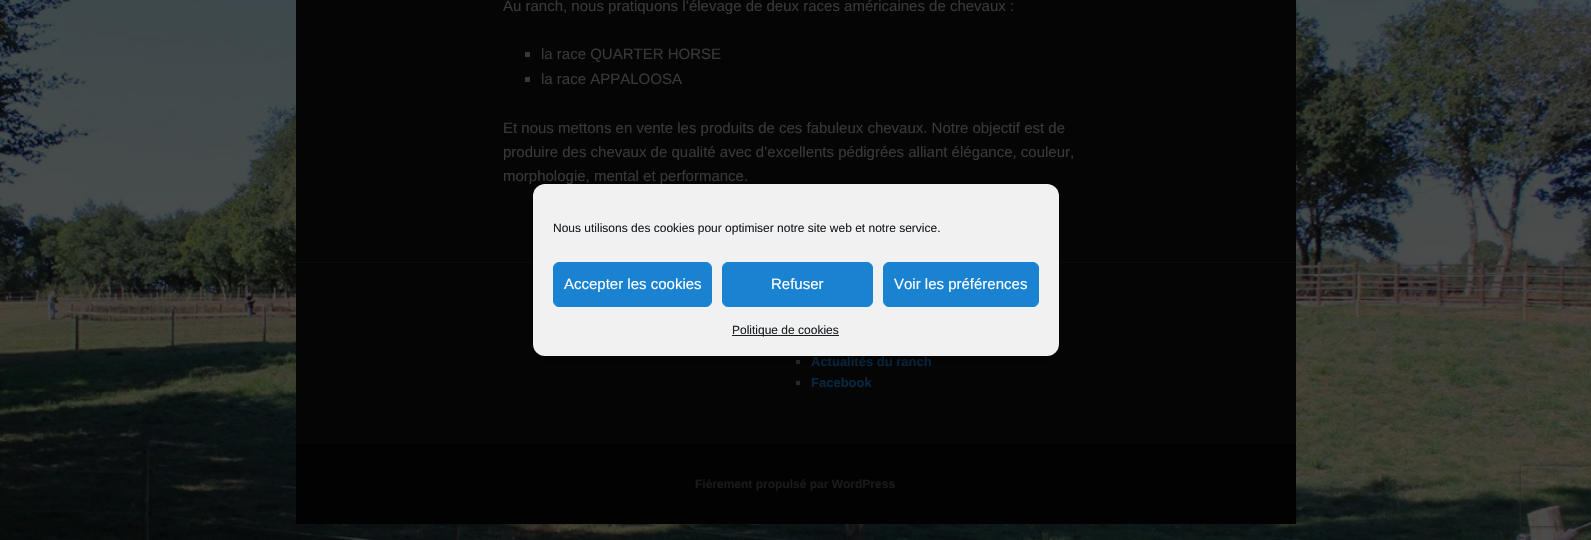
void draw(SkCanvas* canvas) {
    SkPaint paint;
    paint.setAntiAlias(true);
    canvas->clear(0xFFFFFFFF);
    canvas->drawImageRect(SkImages::DeferredFromEncodedData(SkData::MakeFromFileName("img1.png")), SkRect::MakeXYWH(0, 0, 1591, 540), SkSamplingOptions());
    paint.setColor(0xFF050505);
    canvas->drawRect(SkRect::MakeXYWH(296, 0, 1000, 444), paint);
    SkFont font1(fontMgr->matchFamilyStyle("Liberation Sans", SkFontStyle::Normal()), 15);
    font1.setSubpixel(true);
    paint.setColor(0xFF383838);
    canvas->drawString("Au ranch, nous pratiquons l’élevage de deux races américaines de chevaux :", 503, 11, font1, paint);
    canvas->drawRect(SkRect::MakeXYWH(525, 52, 5, 5), paint);
    canvas->drawString("la race QUARTER HORSE", 541, 59, font1, paint);
    canvas->drawRect(SkRect::MakeXYWH(525, 77, 5, 5), paint);
    canvas->drawString("la race APPALOOSA", 541, 84, font1, paint);
    canvas->drawString("Et nous mettons en vente les produits de ces fabuleux chevaux. Notre objectif est de", 503, 133, font1, paint);
    canvas->drawString("produire des chevaux de qualité avec d’excellents pédigrées alliant élégance, couleur,", 503, 157, font1, paint);
    canvas->drawString("morphologie, mental et performance.", 503, 181, font1, paint);
    paint.setColor(0xFF0A0A0A);
    canvas->drawRect(SkRect::MakeXYWH(296, 262, 1000, 1), paint);
    paint.setColor(0xFF292929);
    canvas->drawRect(SkRect::MakeXYWH(796, 360, 4, 4), paint);
    SkFont font2(fontMgr->matchFamilyStyle("Liberation Sans", SkFontStyle::Bold()), 13);
    font2.setSubpixel(true);
    paint.setColor(0xFF08273F);
    canvas->drawString("Actualités du ranch", 811, 366, font2, paint);
    paint.setColor(0xFF292929);
    canvas->drawRect(SkRect::MakeXYWH(796, 381, 4, 4), paint);
    paint.setColor(0xFF08273F);
    canvas->drawString("Facebook", 811, 387, font2, paint);
    paint.setColor(0xFF020202);
    canvas->drawRect(SkRect::MakeXYWH(296, 445, 1000, 79), paint);
    paint.setColor(0xFF000000);
    canvas->drawRect(SkRect::MakeXYWH(296, 444, 1000, 1), paint);
    SkFont font3(fontMgr->matchFamilyStyle("Liberation Sans", SkFontStyle::Bold()), 12);
    font3.setSubpixel(true);
    paint.setColor(0xFF1A1A1A);
    canvas->drawString("Fièrement propulsé par WordPress", 695, 488, font3, paint);
    paint.setColor(0x3B000000);
    paint.setMaskFilter(SkMaskFilter::MakeBlur(kNormal_SkBlurStyle, 3));
    canvas->drawRoundRect(SkRect::MakeXYWH(533, 190, 526, 172), 12, 12, paint);
    paint.setMaskFilter(nullptr);
    paint.setColor(0xFFF1F1F1);
    canvas->drawRoundRect(SkRect::MakeXYWH(533, 184, 526, 172), 12, 12, paint);
    SkFont font4(fontMgr->matchFamilyStyle("Liberation Sans", SkFontStyle::Normal()), 12);
    font4.setSubpixel(true);
    paint.setColor(0xFF191E23);
    canvas->drawString("Nous utilisons des cookies pour optimiser notre site web et notre service.", 553, 232, font4, paint);
    paint.setColor(0xFF1982D1);
    canvas->drawRoundRect(SkRect::MakeXYWH(553.5f, 262.5f, 158, 44), 5.5f, 5.5f, paint);
    paint.setStyle(SkPaint::kStroke_Style);
    paint.setStrokeWidth(1);
    canvas->drawRoundRect(SkRect::MakeXYWH(553.5f, 262.5f, 158, 44), 5.5f, 5.5f, paint);
    paint.setStyle(SkPaint::kFill_Style);
    paint.setColor(0xFFFFFFFF);
    canvas->drawString("Accepter les cookies", 564, 289, font1, paint);
    paint.setColor(0xFF1982D1);
    canvas->drawRoundRect(SkRect::MakeXYWH(722.5f, 262.5f, 150, 44), 5.5f, 5.5f, paint);
    paint.setStyle(SkPaint::kStroke_Style);
    canvas->drawRoundRect(SkRect::MakeXYWH(722.5f, 262.5f, 150, 44), 5.5f, 5.5f, paint);
    paint.setStyle(SkPaint::kFill_Style);
    paint.setColor(0xFFFFFFFF);
    canvas->drawString("Refuser", 771, 289, font1, paint);
    paint.setColor(0xFF1982D1);
    canvas->drawRoundRect(SkRect::MakeXYWH(883.5f, 262.5f, 155, 44), 5.5f, 5.5f, paint);
    paint.setStyle(SkPaint::kStroke_Style);
    canvas->drawRoundRect(SkRect::MakeXYWH(883.5f, 262.5f, 155, 44), 5.5f, 5.5f, paint);
    paint.setStyle(SkPaint::kFill_Style);
    paint.setColor(0xFFFFFFFF);
    canvas->drawString("Voir les préférences", 894, 289, font1, paint);
    paint.setColor(0xFF191E23);
    canvas->drawRect(SkRect::MakeXYWH(732, 335, 107, 1), paint);
    canvas->drawString("Politique de cookies", 732, 334, font4, paint);
    canvas->save();
    canvas->clipPath(SkPathBuilder(SkPathFillType::kEvenOdd).moveTo(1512, 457).lineTo(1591, 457).lineTo(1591, 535).lineTo(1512, 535).close().moveTo(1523, 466).lineTo(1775, 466).cubicTo(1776, 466, 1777, 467, 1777, 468).lineTo(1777, 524).cubicTo(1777, 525, 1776, 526, 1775, 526).lineTo(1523, 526).cubicTo(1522, 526, 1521, 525, 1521, 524).lineTo(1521, 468).cubicTo(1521, 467, 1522, 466, 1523, 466).close().detach(), true);
    paint.setColor(0xFF262626);
    paint.setMaskFilter(SkMaskFilter::MakeBlur(kNormal_SkBlurStyle, 2.5f));
    canvas->drawRoundRect(SkRect::MakeXYWH(1521, 466, 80, 60), 2, 2, paint);
    paint.setMaskFilter(nullptr);
    canvas->restore();
}
